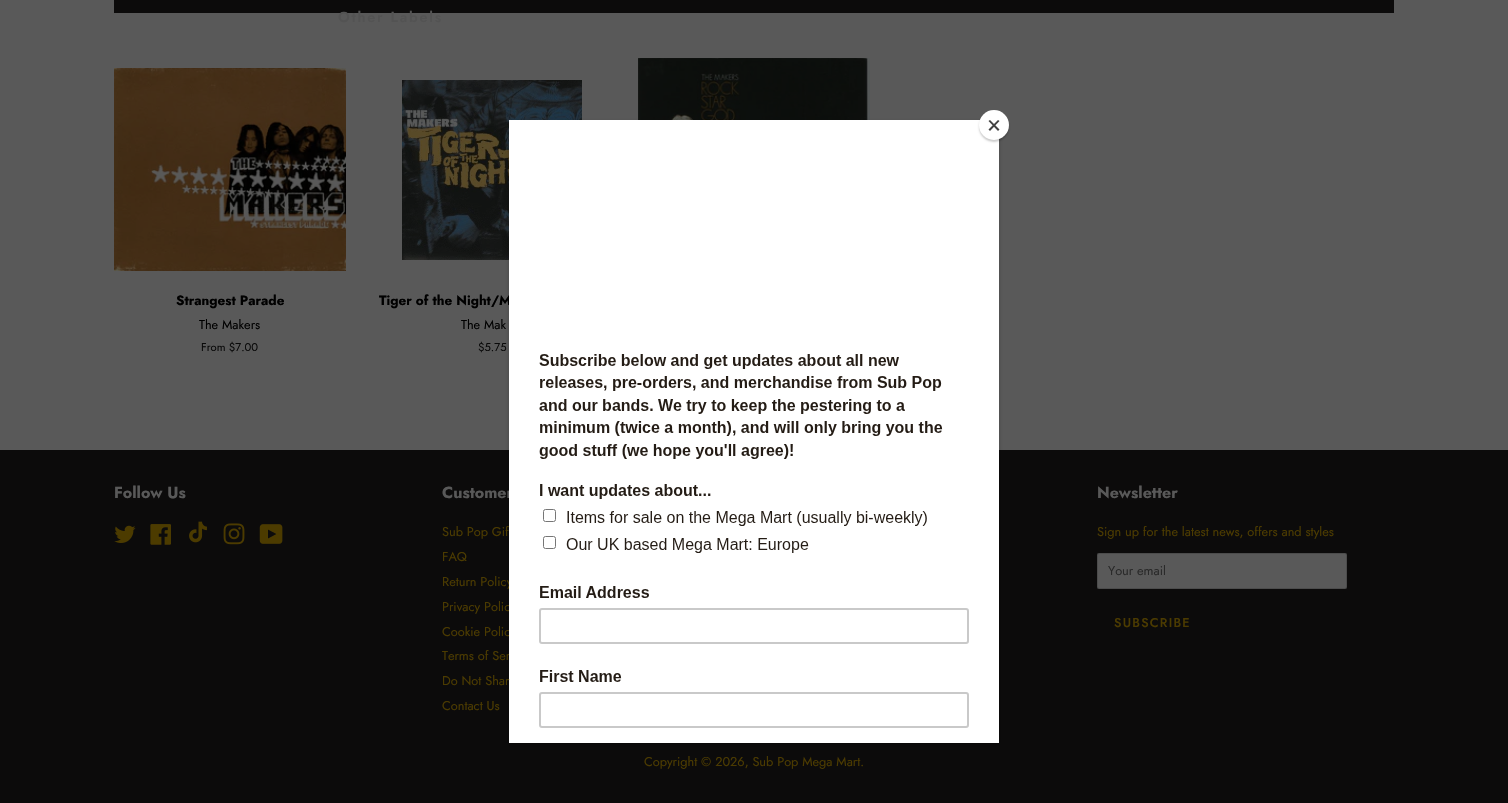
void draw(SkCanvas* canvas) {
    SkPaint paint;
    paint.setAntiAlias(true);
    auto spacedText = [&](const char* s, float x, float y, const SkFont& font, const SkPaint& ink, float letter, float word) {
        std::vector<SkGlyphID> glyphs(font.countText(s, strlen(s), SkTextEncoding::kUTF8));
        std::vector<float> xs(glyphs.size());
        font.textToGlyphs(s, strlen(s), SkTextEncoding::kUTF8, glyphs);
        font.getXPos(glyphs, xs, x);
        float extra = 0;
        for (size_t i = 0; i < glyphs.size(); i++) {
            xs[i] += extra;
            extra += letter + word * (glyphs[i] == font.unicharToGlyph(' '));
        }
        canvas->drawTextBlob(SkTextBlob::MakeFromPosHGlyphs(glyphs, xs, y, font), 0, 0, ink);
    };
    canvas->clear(0xFF595959);
    paint.setColor(0xFF0C0B0B);
    canvas->drawRect(SkRect::MakeXYWH(114, 0, 1280, 13), paint);
    SkFont font1(fontMgr->matchFamilyStyle("Jost", SkFontStyle(600, SkFontStyle::kNormal_Width, SkFontStyle::kUpright_Slant)), 14.5f);
    font1.setSubpixel(true);
    paint.setColor(0xFF535353);
    spacedText("Other Labels", 338, 22, font1, paint, 1.75f, 0);
    canvas->drawImageRect(SkImages::DeferredFromEncodedData(SkData::MakeFromFileName("img1.png")), SkRect::MakeXYWH(638, 58, 232, 62), SkSamplingOptions());
    canvas->drawImageRect(SkImages::DeferredFromEncodedData(SkData::MakeFromFileName("img2.png")), SkRect::MakeXYWH(114, 68, 232, 203), SkSamplingOptions());
    SkFont font2(fontMgr->matchFamilyStyle("Jost", SkFontStyle::Bold()), 13.5f);
    font2.setSubpixel(true);
    paint.setColor(0xFF000000);
    canvas->drawString("Strangest Parade", 176, 305, font2, paint);
    SkFont font3(fontMgr->matchFamilyStyle("Jost", SkFontStyle::Normal()), 12.75f);
    font3.setSubpixel(true);
    canvas->drawString("The Makers", 199, 329, font3, paint);
    SkFont font4(fontMgr->matchFamilyStyle("Jost", SkFontStyle::Normal()), 11.25f);
    font4.setSubpixel(true);
    paint.setColor(0xFF090909);
    canvas->drawString("From $7.00", 201, 351, font4, paint);
    canvas->drawImageRect(SkImages::DeferredFromEncodedData(SkData::MakeFromFileName("img3.png")), SkRect::MakeXYWH(402, 80, 180, 180), SkSamplingOptions());
    paint.setColor(0xFF000000);
    canvas->drawString("Tiger of the Night/M", 379, 305, font2, paint);
    canvas->drawString("The Mak", 461, 329, font3, paint);
    paint.setColor(0xFF090909);
    canvas->drawString("$5.75", 478, 351, font4, paint);
    paint.setColor(0xFF0C0B0B);
    canvas->drawRect(SkRect::MakeXYWH(0, 450, 1508, 353), paint);
    paint.setColor(0x33000000);
    paint.setMaskFilter(SkMaskFilter::MakeBlur(kNormal_SkBlurStyle, 2));
    canvas->drawRect(SkRect::MakeXYWH(509, 122, 490, 623), paint);
    paint.setMaskFilter(nullptr);
    SkFont font5(fontMgr->matchFamilyStyle("Jost", SkFontStyle::Bold()), 16);
    font5.setSubpixel(true);
    paint.setColor(0xFF595959);
    canvas->drawString("Customer", 442, 498, font5, paint);
    paint.setColor(0xFF4C3B00);
    canvas->drawString("Return Policy", 442, 586, font3, paint);
    canvas->drawString("Privacy Polic", 442, 611, font3, paint);
    canvas->drawString("Cookie Polic", 442, 636, font3, paint);
    canvas->drawString("Terms of Ser", 442, 660, font3, paint);
    canvas->drawImageRect(SkImages::DeferredFromEncodedData(SkData::MakeFromFileName("img4.png")), SkRect::MakeXYWH(509, 120, 490, 623), SkSamplingOptions());
    paint.setColor(0x33000000);
    paint.setMaskFilter(SkMaskFilter::MakeBlur(kNormal_SkBlurStyle, 1));
    canvas->drawRoundRect(SkRect::MakeXYWH(979, 112, 30, 30), 15, 15, paint);
    paint.setMaskFilter(nullptr);
    paint.setColor(0xFFFFFFFF);
    canvas->drawCircle(994, 125, 15, paint);
    paint.setColor(0xFF414141);
    canvas->drawPath(SkPathBuilder().moveTo(998, 120).lineTo(999.5f, 121).lineTo(990, 131).lineTo(988.5f, 129.5f).close().detach(), paint);
    canvas->drawPath(SkPathBuilder().moveTo(988.5f, 121).lineTo(990, 120).lineTo(999.5f, 129.5f).lineTo(998, 131).close().detach(), paint);
    paint.setColor(0xFF595959);
    canvas->drawString("Follow Us", 114, 498, font5, paint);
    canvas->drawImageRect(SkImages::DeferredFromEncodedData(SkData::MakeFromFileName("img5.png")), SkRect::MakeXYWH(114, 525, 22, 18), SkSamplingOptions());
    canvas->drawImageRect(SkImages::DeferredFromEncodedData(SkData::MakeFromFileName("img6.png")), SkRect::MakeXYWH(150, 524, 21, 21), SkSamplingOptions());
    canvas->drawImageRect(SkImages::DeferredFromEncodedData(SkData::MakeFromFileName("img7.png")), SkRect::MakeXYWH(189, 521, 18, 22), SkSamplingOptions());
    canvas->drawImageRect(SkImages::DeferredFromEncodedData(SkData::MakeFromFileName("img8.png")), SkRect::MakeXYWH(223, 523, 22, 22), SkSamplingOptions());
    canvas->drawImageRect(SkImages::DeferredFromEncodedData(SkData::MakeFromFileName("img9.png")), SkRect::MakeXYWH(259, 524, 24, 20), SkSamplingOptions());
    paint.setColor(0xFF4C3B00);
    canvas->drawString("Sub Pop Gif", 442, 536, font3, paint);
    canvas->drawString("FAQ", 442, 561, font3, paint);
    canvas->drawString("Do Not Shar", 442, 685, font3, paint);
    canvas->drawString("Contact Us", 442, 710, font3, paint);
    paint.setColor(0xFF595959);
    canvas->drawString("Newsletter", 1097, 498, font5, paint);
    paint.setColor(0xFF4C3B00);
    canvas->drawString("Sign up for the latest news, offers and styles", 1097, 536, font3, paint);
    paint.setColor(0xFF595959);
    canvas->drawRoundRect(SkRect::MakeXYWH(1097, 553, 250, 36), 2, 2, paint);
    paint.setStyle(SkPaint::kStroke_Style);
    paint.setStrokeWidth(1);
    paint.setColor(0x26000000);
    canvas->drawRoundRect(SkRect::MakeXYWH(1097.5f, 553.5f, 249, 35), 1.5f, 1.5f, paint);
    paint.setStyle(SkPaint::kFill_Style);
    paint.setColor(0xFF292929);
    canvas->drawString("Your email", 1108, 575, font3, paint);
    SkFont font6(fontMgr->matchFamilyStyle("Jost", SkFontStyle(500, SkFontStyle::kNormal_Width, SkFontStyle::kUpright_Slant)), 12.75f);
    font6.setSubpixel(true);
    paint.setColor(0xFF4C3B00);
    spacedText("SUBSCRIBE", 1114, 627, font6, paint, 1.25f, 0);
    canvas->drawString("Copyright © 2026, Sub Pop Mega Mart.", 644, 766, font3, paint);
}
